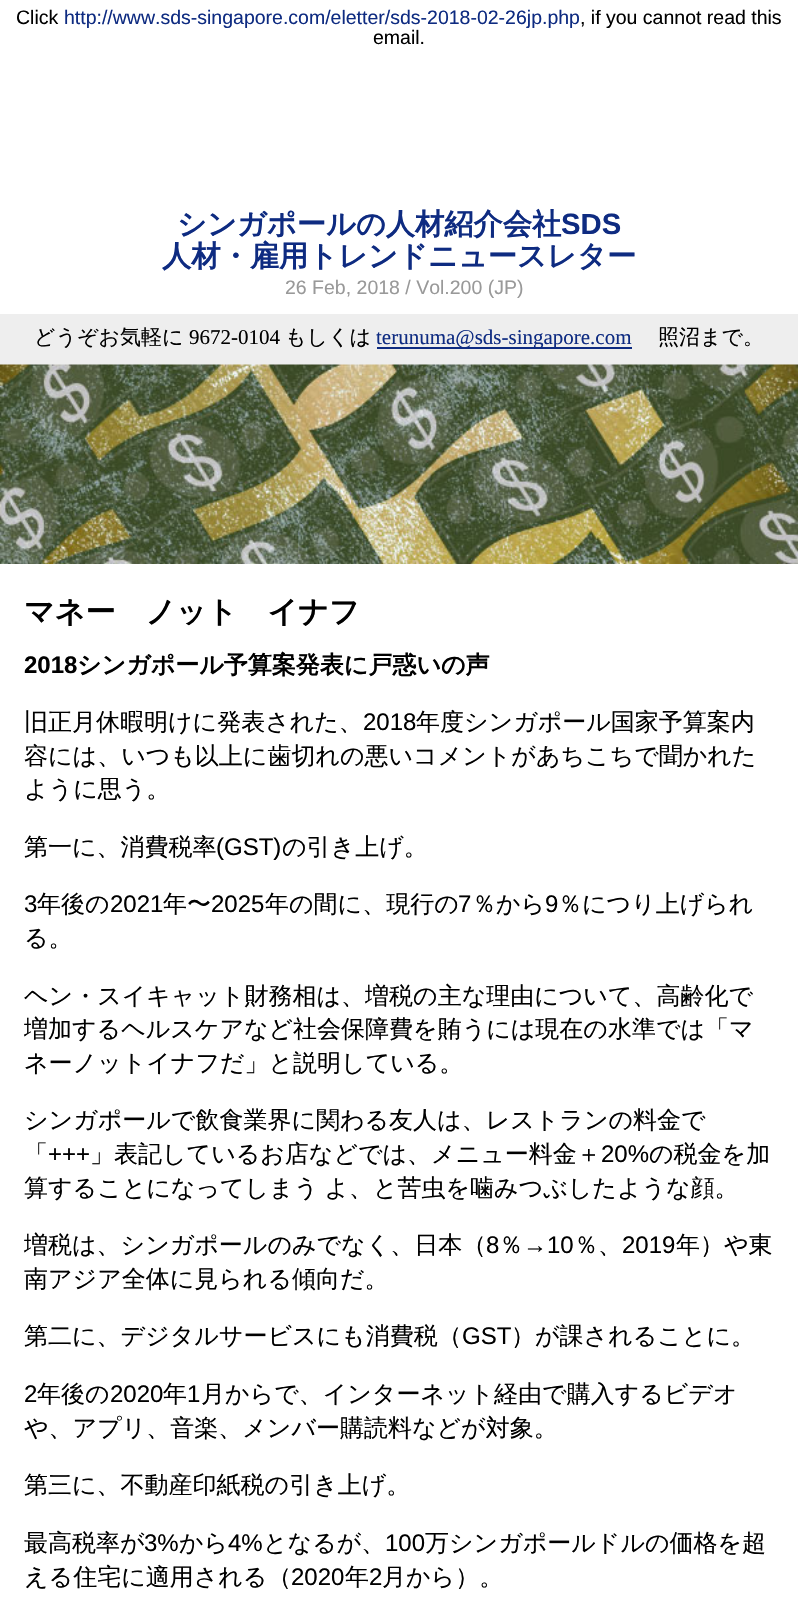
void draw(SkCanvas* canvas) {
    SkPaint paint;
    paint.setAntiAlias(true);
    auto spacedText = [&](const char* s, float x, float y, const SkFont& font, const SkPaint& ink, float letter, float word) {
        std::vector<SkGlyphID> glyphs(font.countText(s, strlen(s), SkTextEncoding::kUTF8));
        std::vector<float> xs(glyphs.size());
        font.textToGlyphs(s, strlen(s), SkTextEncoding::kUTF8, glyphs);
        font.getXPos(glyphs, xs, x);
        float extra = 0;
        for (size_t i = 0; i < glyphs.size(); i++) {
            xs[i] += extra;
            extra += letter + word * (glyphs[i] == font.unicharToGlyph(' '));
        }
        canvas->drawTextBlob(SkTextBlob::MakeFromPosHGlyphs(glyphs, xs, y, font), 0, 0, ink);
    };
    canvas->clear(0xFFFFFFFF);
    SkFont font1(fontMgr->matchFamilyStyle("Liberation Sans", SkFontStyle::Normal()), 19.5f);
    font1.setSubpixel(true);
    paint.setColor(0xFF000000);
    canvas->drawString("Click", 16, 24, font1, paint);
    paint.setColor(0xFF0E2B81);
    canvas->drawString("http://www.sds-singapore.com/eletter/sds-2018-02-26jp.php", 64, 24, font1, paint);
    paint.setColor(0xFF000000);
    canvas->drawString(", if you cannot read this", 580, 24, font1, paint);
    canvas->drawString("email.", 373, 44, font1, paint);
    SkFont font2(fontMgr->matchFamilyStyle("WenQuanYi Zen Hei", SkFontStyle::Bold()), 29.25f);
    font2.setSubpixel(true);
    paint.setColor(0xFF0E2B81);
    canvas->drawString("シンガポールの人材紹介会社", 177, 234, font2, paint);
    SkFont font3(fontMgr->matchFamilyStyle("Liberation Sans", SkFontStyle::Bold()), 29.25f);
    font3.setSubpixel(true);
    canvas->drawString("SDS", 561, 234, font3, paint);
    canvas->drawString("人材・雇用トレンドニュースレター", 162, 266, font2, paint);
    paint.setColor(0xFF999999);
    canvas->drawString("26 Feb, 2018 / Vol.200 (JP)", 285, 294, font1, paint);
    paint.setColor(0xFFEEEEEE);
    canvas->drawRect(SkRect::MakeXYWH(0, 314, 798, 51), paint);
    SkFont font4(fontMgr->matchFamilyStyle("WenQuanYi Zen Hei", SkFontStyle(500, SkFontStyle::kNormal_Width, SkFontStyle::kUpright_Slant)), 21);
    font4.setSubpixel(true);
    paint.setColor(0xFF000000);
    canvas->drawString("どうぞお気軽に", 34, 344, font4, paint);
    SkFont font5(fontMgr->matchFamilyStyle("Liberation Serif", SkFontStyle::Normal()), 21);
    font5.setSubpixel(true);
    canvas->drawString("9672-0104", 189, 344, font5, paint);
    canvas->drawString("もしくは", 285, 344, font4, paint);
    paint.setColor(0xFF0E2B81);
    canvas->drawRect(SkRect::MakeXYWH(377, 347, 255, 2), paint);
    canvas->drawString("terunuma@sds-singapore.com", 376, 344, font5, paint);
    paint.setColor(0xFF000000);
    canvas->drawString("照沼まで。", 658, 344, font4, paint);
    canvas->drawImageRect(SkImages::DeferredFromEncodedData(SkData::MakeFromFileName("img1.png")), SkRect::MakeXYWH(0, 364, 798, 200), SkSamplingOptions());
    SkFont font6(fontMgr->matchFamilyStyle("WenQuanYi Zen Hei", SkFontStyle::Bold()), 30);
    font6.setSubpixel(true);
    canvas->drawString("マネー　ノット　イナフ", 24, 622, font6, paint);
    SkFont font7(fontMgr->matchFamilyStyle("Liberation Sans", SkFontStyle::Bold()), 24);
    font7.setSubpixel(true);
    canvas->drawString("2018", 24, 673, font7, paint);
    SkFont font8(fontMgr->matchFamilyStyle("WenQuanYi Zen Hei", SkFontStyle::Bold()), 24);
    font8.setSubpixel(true);
    canvas->drawString("シンガポール予算案発表に戸惑いの声", 77, 673, font8, paint);
    SkFont font9(fontMgr->matchFamilyStyle("WenQuanYi Zen Hei", SkFontStyle(500, SkFontStyle::kNormal_Width, SkFontStyle::kUpright_Slant)), 24);
    font9.setSubpixel(true);
    canvas->drawString("旧正月休暇明けに発表された、", 24, 730, font9, paint);
    SkFont font10(fontMgr->matchFamilyStyle("Liberation Sans", SkFontStyle::Normal()), 24);
    font10.setSubpixel(true);
    canvas->drawString("2018", 363, 730, font10, paint);
    canvas->drawString("年度シンガポール国家予算案内", 416, 730, font9, paint);
    canvas->drawString("容には、いつも以上に歯切れの悪いコメントがあちこちで聞かれた", 24, 764, font9, paint);
    canvas->drawString("ように思う。", 24, 797, font9, paint);
    canvas->drawString("第一に、消費税率", 24, 855, font9, paint);
    canvas->drawString("(GST)", 216, 855, font10, paint);
    canvas->drawString("の引き上げ。", 282, 855, font9, paint);
    canvas->drawString("3", 24, 912, font10, paint);
    canvas->drawString("年後の", 37, 912, font9, paint);
    canvas->drawString("2021", 110, 912, font10, paint);
    canvas->drawString("年〜", 163, 912, font9, paint);
    canvas->drawString("2025", 211, 912, font10, paint);
    canvas->drawString("年の間に、現行の", 265, 912, font9, paint);
    canvas->drawString("7", 458, 912, font10, paint);
    canvas->drawString("％から", 472, 912, font9, paint);
    canvas->drawString("9", 545, 912, font10, paint);
    canvas->drawString("％につり上げられ", 558, 912, font9, paint);
    canvas->drawString("る。", 24, 946, font9, paint);
    canvas->drawString("ヘン・スイキャット財務相は、増税の主な理由について、高齢化で", 24, 1004, font9, paint);
    canvas->drawString("増加するヘルスケアなど社会保障費を賄うには現在の水準では「マ", 24, 1037, font9, paint);
    canvas->drawString("ネーノットイナフだ」と説明している。", 24, 1071, font9, paint);
    canvas->drawString("シンガポールで飲食業界に関わる友人は、レストランの料金で", 24, 1128, font9, paint);
    canvas->drawString("「", 24, 1162, font9, paint);
    canvas->drawString("+++", 48, 1162, font10, paint);
    canvas->drawString("」表記しているお店などでは、メニュー料金＋", 90, 1162, font9, paint);
    canvas->drawString("20%", 601, 1162, font10, paint);
    canvas->drawString("の税金を加", 649, 1162, font9, paint);
    spacedText("算することになってしまう よ、と苦虫を噛みつぶしたような顔。", 24, 1196, font9, paint, 0, -1);
    canvas->drawString("増税は、シンガポールのみでなく、日本（", 24, 1253, font9, paint);
    canvas->drawString("8", 486, 1253, font10, paint);
    canvas->drawString("％", 499, 1253, font9, paint);
    canvas->drawString("→10", 523, 1253, font10, paint);
    canvas->drawString("％、", 574, 1253, font9, paint);
    canvas->drawString("2019", 622, 1253, font10, paint);
    canvas->drawString("年）や東", 676, 1253, font9, paint);
    canvas->drawString("南アジア全体に見られる傾向だ。", 24, 1287, font9, paint);
    canvas->drawString("第二に、デジタルサービスにも消費税（", 24, 1344, font9, paint);
    canvas->drawString("GST", 462, 1344, font10, paint);
    canvas->drawString("）が課されることに。", 511, 1344, font9, paint);
    canvas->drawString("2", 24, 1402, font10, paint);
    canvas->drawString("年後の", 37, 1402, font9, paint);
    canvas->drawString("2020", 110, 1402, font10, paint);
    canvas->drawString("年", 163, 1402, font9, paint);
    canvas->drawString("1", 187, 1402, font10, paint);
    canvas->drawString("月からで、インターネット経由で購入するビデオ", 201, 1402, font9, paint);
    canvas->drawString("や、アプリ、音楽、メンバー購読料などが対象。", 24, 1436, font9, paint);
    canvas->drawString("第三に、不動産印紙税の引き上げ。", 24, 1493, font9, paint);
    canvas->drawString("最高税率が", 24, 1551, font9, paint);
    canvas->drawString("3%", 144, 1551, font10, paint);
    canvas->drawString("から", 179, 1551, font9, paint);
    canvas->drawString("4%", 228, 1551, font10, paint);
    canvas->drawString("となるが、", 263, 1551, font9, paint);
    canvas->drawString("100", 385, 1551, font10, paint);
    canvas->drawString("万シンガポールドルの価格を超", 425, 1551, font9, paint);
    canvas->drawString("える住宅に適用される（", 24, 1585, font9, paint);
    canvas->drawString("2020", 291, 1585, font10, paint);
    canvas->drawString("年", 345, 1585, font9, paint);
    canvas->drawString("2", 369, 1585, font10, paint);
    canvas->drawString("月から）。", 382, 1585, font9, paint);
}
